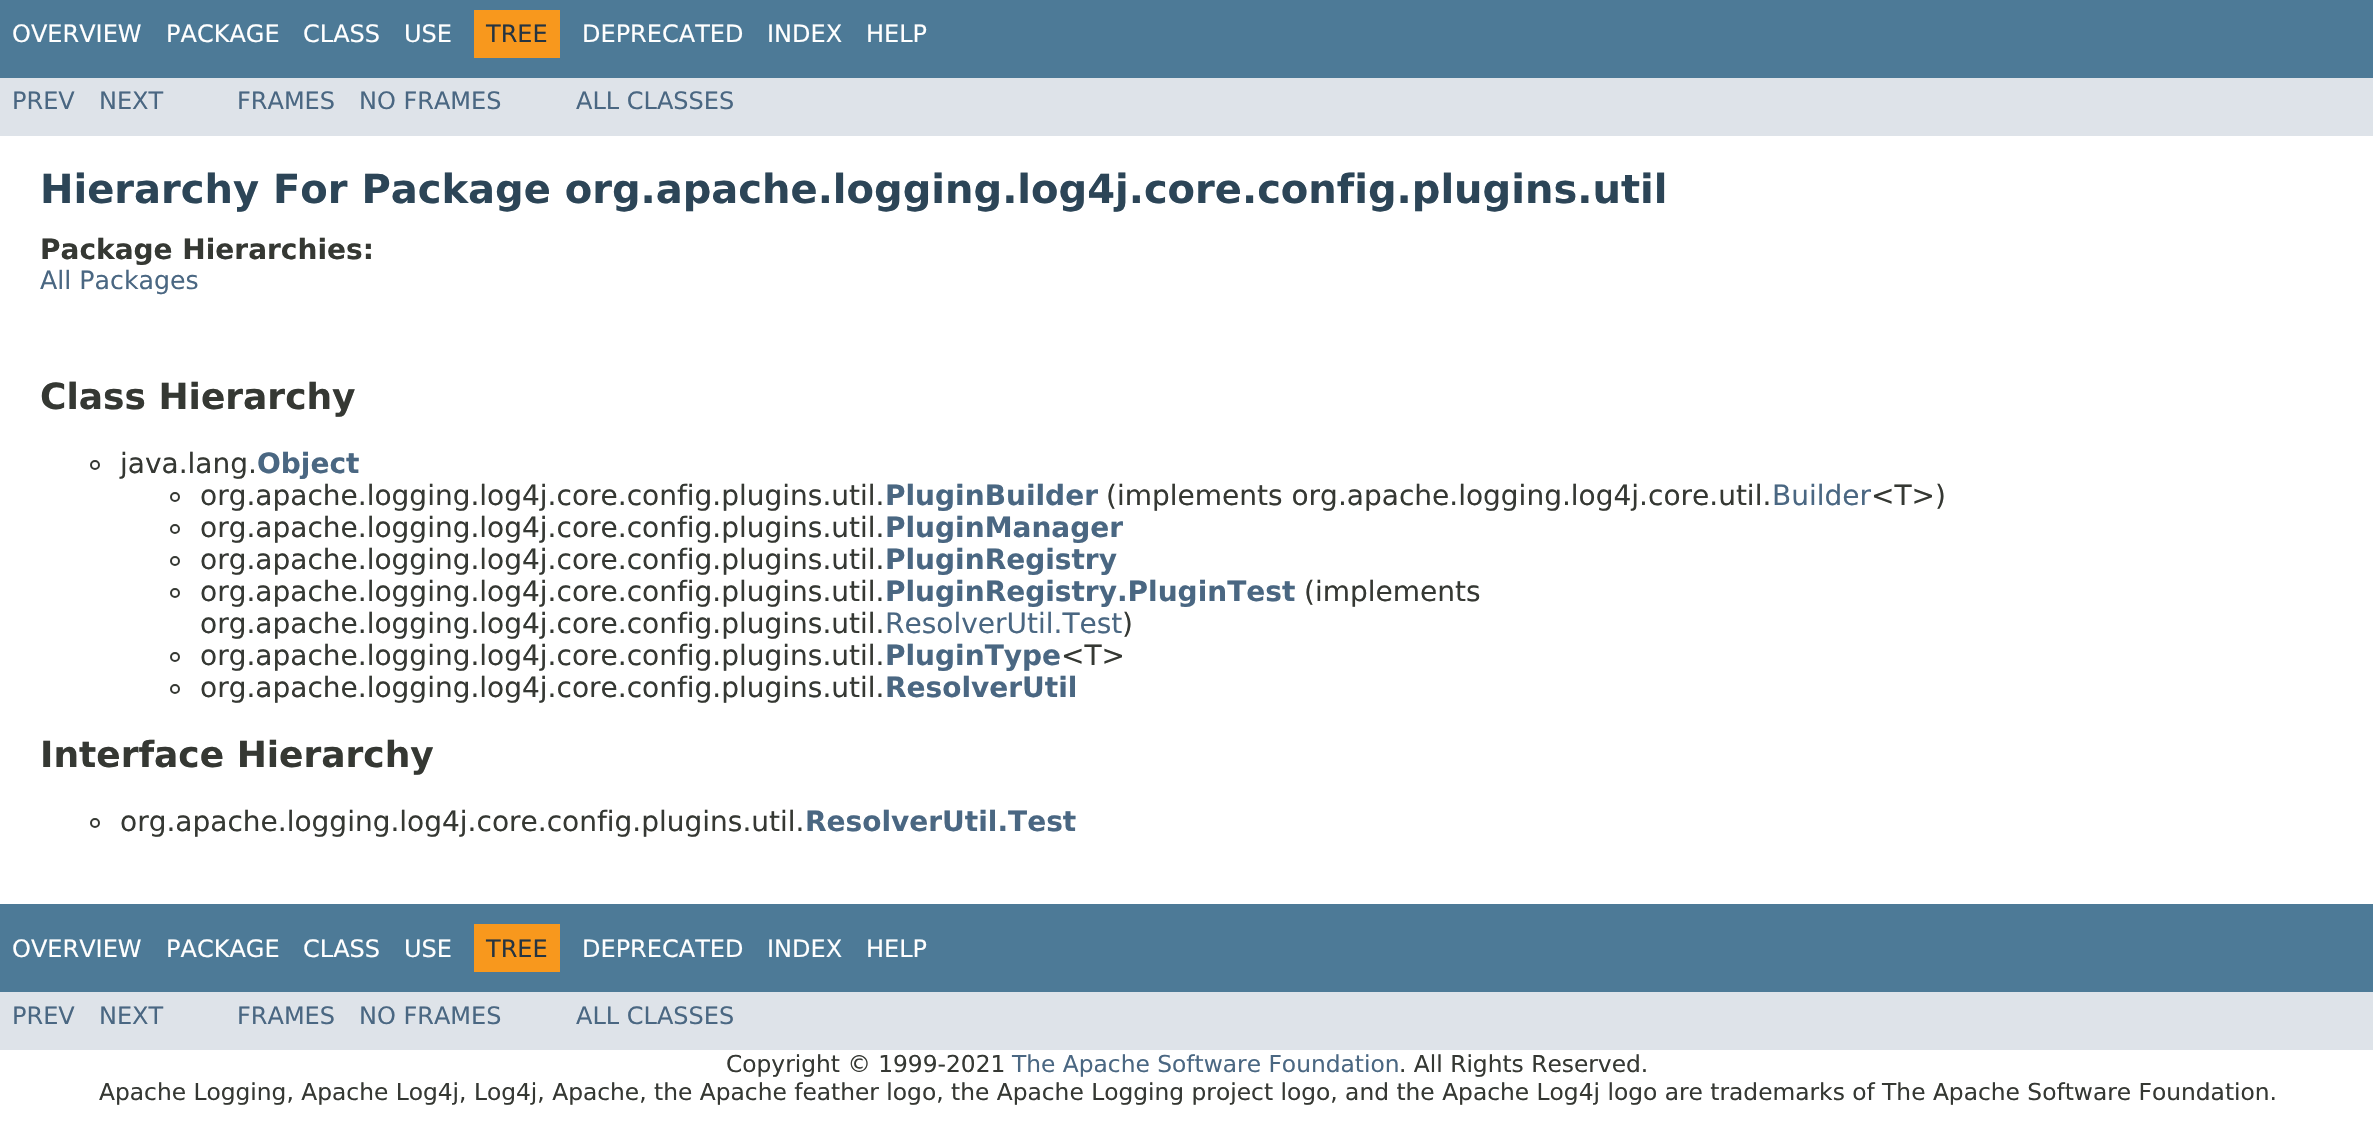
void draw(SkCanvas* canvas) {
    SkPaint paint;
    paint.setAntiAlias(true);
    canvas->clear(0xFFFFFFFF);
    paint.setColor(0xFF4D7A97);
    canvas->drawRect(SkRect::MakeXYWH(0, 0, 2373, 78), paint);
    SkFont font1(fontMgr->matchFamilyStyle("DejaVu Sans", SkFontStyle::Normal()), 24);
    font1.setSubpixel(true);
    paint.setColor(0xFFFFFFFF);
    canvas->drawString("OVERVIEW", 12, 42, font1, paint);
    canvas->drawString("PACKAGE", 166, 42, font1, paint);
    canvas->drawString("CLASS", 303, 42, font1, paint);
    canvas->drawString("USE", 404, 42, font1, paint);
    paint.setColor(0xFFF8981D);
    canvas->drawRect(SkRect::MakeXYWH(474, 10, 86, 48), paint);
    paint.setColor(0xFF253441);
    canvas->drawString("TREE", 486, 42, font1, paint);
    paint.setColor(0xFFFFFFFF);
    canvas->drawString("DEPRECATED", 582, 42, font1, paint);
    canvas->drawString("INDEX", 767, 42, font1, paint);
    canvas->drawString("HELP", 866, 42, font1, paint);
    paint.setColor(0xFFDEE3E9);
    canvas->drawRect(SkRect::MakeXYWH(0, 78, 2373, 58), paint);
    paint.setColor(0xFF4A6782);
    canvas->drawString("PREV", 12, 109, font1, paint);
    canvas->drawString("NEXT", 99, 109, font1, paint);
    canvas->drawString("FRAMES", 237, 109, font1, paint);
    canvas->drawString("NO FRAMES", 359, 109, font1, paint);
    canvas->drawString("ALL CLASSES", 576, 109, font1, paint);
    SkFont font2(fontMgr->matchFamilyStyle("DejaVu Sans", SkFontStyle::Bold()), 40);
    font2.setSubpixel(true);
    paint.setColor(0xFF2C4557);
    canvas->drawString("Hierarchy For Package org.apache.logging.log4j.core.config.plugins.util", 40, 203, font2, paint);
    SkFont font3(fontMgr->matchFamilyStyle("DejaVu Sans", SkFontStyle::Bold()), 28);
    font3.setSubpixel(true);
    paint.setColor(0xFF353833);
    canvas->drawString("Package Hierarchies:", 40, 259, font3, paint);
    SkFont font4(fontMgr->matchFamilyStyle("DejaVu Sans", SkFontStyle::Normal()), 25.25f);
    font4.setSubpixel(true);
    paint.setColor(0xFF4A6782);
    canvas->drawString("All Packages", 40, 289, font4, paint);
    SkFont font5(fontMgr->matchFamilyStyle("DejaVu Sans", SkFontStyle::Bold()), 36);
    font5.setSubpixel(true);
    paint.setColor(0xFF353833);
    canvas->drawString("Class Hierarchy", 40, 409, font5, paint);
    paint.setStyle(SkPaint::kStroke_Style);
    paint.setStrokeWidth(2);
    canvas->drawCircle(95, 465, 4, paint);
    SkFont font6(fontMgr->matchFamilyStyle("DejaVu Sans", SkFontStyle::Normal()), 28);
    font6.setSubpixel(true);
    paint.setStyle(SkPaint::kFill_Style);
    canvas->drawString("java.lang.", 120, 473, font6, paint);
    paint.setColor(0xFF4A6782);
    canvas->drawString("Object", 257, 473, font3, paint);
    paint.setStyle(SkPaint::kStroke_Style);
    paint.setColor(0xFF353833);
    canvas->drawCircle(175, 497, 4, paint);
    paint.setStyle(SkPaint::kFill_Style);
    canvas->drawString("org.apache.logging.log4j.core.config.plugins.util.", 200, 505, font6, paint);
    paint.setColor(0xFF4A6782);
    canvas->drawString("PluginBuilder", 885, 505, font3, paint);
    paint.setColor(0xFF353833);
    canvas->drawString("(implements org.apache.logging.log4j.core.util.", 1106, 505, font6, paint);
    paint.setColor(0xFF4A6782);
    canvas->drawString("Builder", 1772, 505, font6, paint);
    paint.setColor(0xFF353833);
    canvas->drawString("<T>)", 1871, 505, font6, paint);
    paint.setStyle(SkPaint::kStroke_Style);
    canvas->drawCircle(175, 529, 4, paint);
    paint.setStyle(SkPaint::kFill_Style);
    canvas->drawString("org.apache.logging.log4j.core.config.plugins.util.", 200, 537, font6, paint);
    paint.setColor(0xFF4A6782);
    canvas->drawString("PluginManager", 885, 537, font3, paint);
    paint.setStyle(SkPaint::kStroke_Style);
    paint.setColor(0xFF353833);
    canvas->drawCircle(175, 561, 4, paint);
    paint.setStyle(SkPaint::kFill_Style);
    canvas->drawString("org.apache.logging.log4j.core.config.plugins.util.", 200, 569, font6, paint);
    paint.setColor(0xFF4A6782);
    canvas->drawString("PluginRegistry", 885, 569, font3, paint);
    paint.setStyle(SkPaint::kStroke_Style);
    paint.setColor(0xFF353833);
    canvas->drawCircle(175, 593, 4, paint);
    paint.setStyle(SkPaint::kFill_Style);
    canvas->drawString("org.apache.logging.log4j.core.config.plugins.util.", 200, 601, font6, paint);
    paint.setColor(0xFF4A6782);
    canvas->drawString("PluginRegistry.PluginTest", 885, 601, font3, paint);
    paint.setColor(0xFF353833);
    canvas->drawString("(implements", 1304, 601, font6, paint);
    canvas->drawString("org.apache.logging.log4j.core.config.plugins.util.", 200, 633, font6, paint);
    paint.setColor(0xFF4A6782);
    canvas->drawString("ResolverUtil.Test", 885, 633, font6, paint);
    paint.setColor(0xFF353833);
    canvas->drawString(")", 1122, 633, font6, paint);
    paint.setStyle(SkPaint::kStroke_Style);
    canvas->drawCircle(175, 657, 4, paint);
    paint.setStyle(SkPaint::kFill_Style);
    canvas->drawString("org.apache.logging.log4j.core.config.plugins.util.", 200, 665, font6, paint);
    paint.setColor(0xFF4A6782);
    canvas->drawString("PluginType", 885, 665, font3, paint);
    paint.setColor(0xFF353833);
    canvas->drawString("<T>", 1061, 665, font6, paint);
    paint.setStyle(SkPaint::kStroke_Style);
    canvas->drawCircle(175, 689, 4, paint);
    paint.setStyle(SkPaint::kFill_Style);
    canvas->drawString("org.apache.logging.log4j.core.config.plugins.util.", 200, 697, font6, paint);
    paint.setColor(0xFF4A6782);
    canvas->drawString("ResolverUtil", 885, 697, font3, paint);
    paint.setColor(0xFF353833);
    canvas->drawString("Interface Hierarchy", 40, 767, font5, paint);
    paint.setStyle(SkPaint::kStroke_Style);
    canvas->drawCircle(95, 823, 4, paint);
    paint.setStyle(SkPaint::kFill_Style);
    canvas->drawString("org.apache.logging.log4j.core.config.plugins.util.", 120, 831, font6, paint);
    paint.setColor(0xFF4A6782);
    canvas->drawString("ResolverUtil.Test", 805, 831, font3, paint);
    paint.setColor(0xFF4D7A97);
    canvas->drawRect(SkRect::MakeXYWH(0, 904, 2373, 88), paint);
    paint.setColor(0xFFFFFFFF);
    canvas->drawString("OVERVIEW", 12, 957, font1, paint);
    canvas->drawString("PACKAGE", 166, 957, font1, paint);
    canvas->drawString("CLASS", 303, 957, font1, paint);
    canvas->drawString("USE", 404, 957, font1, paint);
    paint.setColor(0xFFF8981D);
    canvas->drawRect(SkRect::MakeXYWH(474, 924, 86, 48), paint);
    paint.setColor(0xFF253441);
    canvas->drawString("TREE", 486, 957, font1, paint);
    paint.setColor(0xFFFFFFFF);
    canvas->drawString("DEPRECATED", 582, 957, font1, paint);
    canvas->drawString("INDEX", 767, 957, font1, paint);
    canvas->drawString("HELP", 866, 957, font1, paint);
    paint.setColor(0xFFDEE3E9);
    canvas->drawRect(SkRect::MakeXYWH(0, 992, 2373, 58), paint);
    paint.setColor(0xFF4A6782);
    canvas->drawString("PREV", 12, 1024, font1, paint);
    canvas->drawString("NEXT", 99, 1024, font1, paint);
    canvas->drawString("FRAMES", 237, 1024, font1, paint);
    canvas->drawString("NO FRAMES", 359, 1024, font1, paint);
    canvas->drawString("ALL CLASSES", 576, 1024, font1, paint);
    SkFont font7(fontMgr->matchFamilyStyle("DejaVu Sans", SkFontStyle::Normal()), 23.33f);
    font7.setSubpixel(true);
    paint.setColor(0xFF353833);
    canvas->drawString("Copyright © 1999-2021", 726, 1072, font7, paint);
    paint.setColor(0xFF4A6782);
    canvas->drawString("The Apache Software Foundation", 1012, 1072, font7, paint);
    paint.setColor(0xFF353833);
    canvas->drawString(". All Rights Reserved.", 1399, 1072, font7, paint);
    canvas->drawString("Apache Logging, Apache Log4j, Log4j, Apache, the Apache feather logo, the Apache Logging project logo, and the Apache Log4j logo are trademarks of The Apache Software Foundation.", 99, 1100, font7, paint);
}
